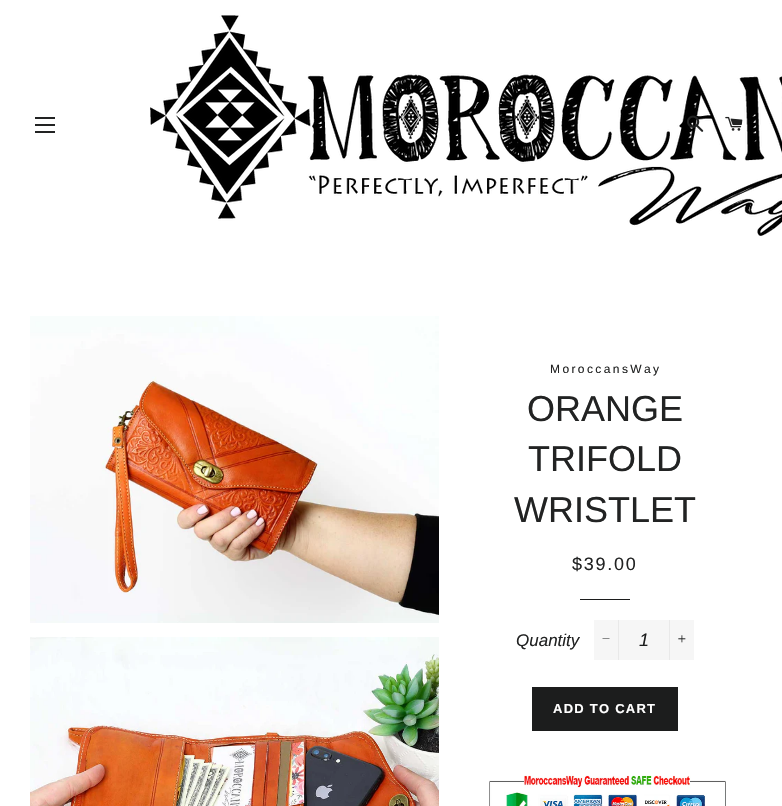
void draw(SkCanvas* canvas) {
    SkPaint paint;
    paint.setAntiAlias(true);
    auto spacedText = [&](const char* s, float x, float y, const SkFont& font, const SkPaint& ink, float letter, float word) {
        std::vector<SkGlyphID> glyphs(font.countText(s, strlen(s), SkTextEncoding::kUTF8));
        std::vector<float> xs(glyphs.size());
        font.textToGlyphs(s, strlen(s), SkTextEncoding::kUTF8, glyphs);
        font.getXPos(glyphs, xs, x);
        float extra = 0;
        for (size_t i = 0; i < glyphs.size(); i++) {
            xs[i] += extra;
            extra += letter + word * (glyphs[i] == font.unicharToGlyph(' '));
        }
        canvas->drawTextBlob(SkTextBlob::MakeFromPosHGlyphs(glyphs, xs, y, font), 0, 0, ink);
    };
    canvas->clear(0xFFFFFFFF);
    canvas->drawImageRect(SkImages::DeferredFromEncodedData(SkData::MakeFromFileName("img1.png")), SkRect::MakeXYWH(150, 15, 632, 221), SkSamplingOptions());
    paint.setColor(0xFF222323);
    canvas->drawRect(SkRect::MakeXYWH(35, 117, 20, 2), paint);
    canvas->drawRect(SkRect::MakeXYWH(35, 124, 20, 2), paint);
    canvas->drawRect(SkRect::MakeXYWH(35, 131, 20, 2), paint);
    canvas->drawImageRect(SkImages::DeferredFromEncodedData(SkData::MakeFromFileName("img2.png")), SkRect::MakeXYWH(687, 115, 17, 17), SkSamplingOptions());
    canvas->drawImageRect(SkImages::DeferredFromEncodedData(SkData::MakeFromFileName("img3.png")), SkRect::MakeXYWH(725, 116, 18, 15), SkSamplingOptions());
    canvas->drawImageRect(SkImages::DeferredFromEncodedData(SkData::MakeFromFileName("img4.png")), SkRect::MakeXYWH(30, 316, 409, 307), SkSamplingOptions());
    canvas->drawImageRect(SkImages::DeferredFromEncodedData(SkData::MakeFromFileName("img5.png")), SkRect::MakeXYWH(30, 637, 409, 169), SkSamplingOptions());
    SkFont font1(fontMgr->matchFamilyStyle("Liberation Sans", SkFontStyle::Normal()), 12);
    font1.setSubpixel(true);
    spacedText("MoroccansWay", 550, 373, font1, paint, 2.4f, 0);
    SkFont font2(fontMgr->matchFamilyStyle("Liberation Sans", SkFontStyle::Normal()), 36);
    font2.setSubpixel(true);
    canvas->drawString("ORANGE", 527, 421, font2, paint);
    canvas->drawString("TRIFOLD", 528, 471, font2, paint);
    canvas->drawString("WRISTLET", 514, 522, font2, paint);
    SkFont font3(fontMgr->matchFamilyStyle("Liberation Sans", SkFontStyle::Normal()), 18);
    font3.setSubpixel(true);
    spacedText("$39.00", 572, 570, font3, paint, 1.75f, 0);
    paint.setColor(0xFF1C1D1D);
    canvas->drawRect(SkRect::MakeXYWH(580, 599, 50, 1), paint);
    SkFont font4(fontMgr->matchFamilyStyle("Liberation Sans", SkFontStyle::Italic()), 17);
    font4.setSubpixel(true);
    paint.setColor(0xFF222323);
    canvas->drawString("Quantity", 516, 646, font4, paint);
    paint.setColor(0xFFF6F6F6);
    canvas->drawRect(SkRect::MakeXYWH(594, 620, 100, 40), paint);
    paint.setColor(0xFFE9E9E9);
    canvas->drawRect(SkRect::MakeXYWH(618, 620, 1, 40), paint);
    paint.setColor(0xFF1C1D1D);
    canvas->drawPath(SkPathBuilder().moveTo(602.5f, 638.5f).lineTo(609.5f, 638.5f).lineTo(609.5f, 639).lineTo(602.5f, 639).close().detach(), paint);
    SkFont font5(fontMgr->matchFamilyStyle("Liberation Sans", SkFontStyle::Italic()), 18);
    font5.setSubpixel(true);
    canvas->drawString("1", 639, 646, font5, paint);
    paint.setColor(0xFFE9E9E9);
    canvas->drawRect(SkRect::MakeXYWH(669, 620, 1, 40), paint);
    canvas->drawImageRect(SkImages::DeferredFromEncodedData(SkData::MakeFromFileName("img6.png")), SkRect::MakeXYWH(678, 635, 8, 8), SkSamplingOptions());
    paint.setColor(0xFF1C1D1D);
    canvas->drawRect(SkRect::MakeXYWH(532, 687, 146, 44), paint);
    SkFont font6(fontMgr->matchFamilyStyle("Liberation Sans", SkFontStyle::Bold()), 13);
    font6.setSubpixel(true);
    paint.setColor(0xFFFFFFFF);
    spacedText("ADD TO CART", 553, 713, font6, paint, 1.25f, 0);
    canvas->drawImageRect(SkImages::DeferredFromEncodedData(SkData::MakeFromFileName("img7.png")), SkRect::MakeXYWH(489, 775, 237, 31), SkSamplingOptions());
}
